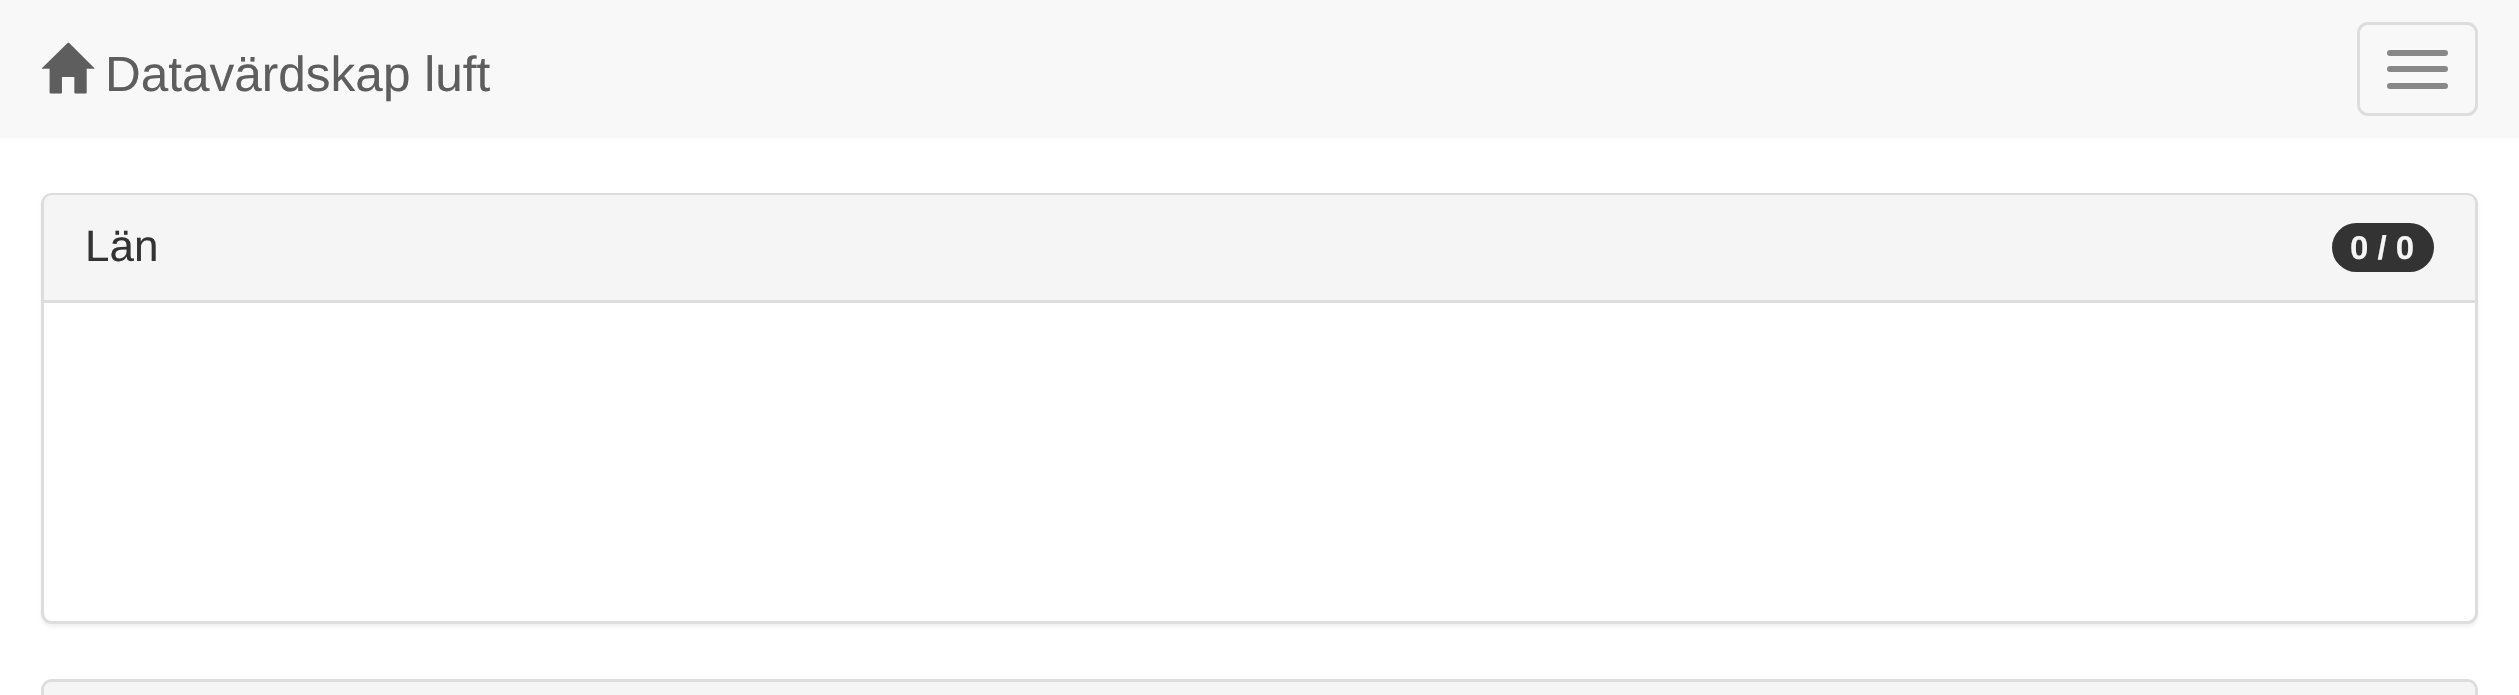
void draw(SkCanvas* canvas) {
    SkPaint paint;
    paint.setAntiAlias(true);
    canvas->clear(0xFFFFFFFF);
    paint.setColor(0xFFF8F8F8);
    canvas->drawRect(SkRect::MakeXYWH(0, 0, 2519, 138), paint);
    canvas->drawImageRect(SkImages::DeferredFromEncodedData(SkData::MakeFromFileName("img1.png")), SkRect::MakeXYWH(41, 42, 54, 52), SkSamplingOptions());
    SkFont font1(fontMgr->matchFamilyStyle("Liberation Sans", SkFontStyle::Normal()), 49.5f);
    font1.setSubpixel(true);
    paint.setColor(0xFF5E5E5E);
    canvas->drawString("Datavärdskap luft", 105, 91, font1, paint);
    paint.setStyle(SkPaint::kStroke_Style);
    paint.setStrokeWidth(3);
    paint.setColor(0xFFDDDDDD);
    canvas->drawRoundRect(SkRect::MakeXYWH(2358.5f, 23.5f, 118, 91), 9.5f, 9.5f, paint);
    paint.setStyle(SkPaint::kFill_Style);
    paint.setColor(0xFF888888);
    canvas->drawRoundRect(SkRect::MakeXYWH(2387, 50, 61, 6), 3, 3, paint);
    canvas->drawRoundRect(SkRect::MakeXYWH(2387, 66, 61, 6), 3, 3, paint);
    canvas->drawRoundRect(SkRect::MakeXYWH(2387, 83, 61, 6), 3, 3, paint);
    paint.setColor(0x0D000000);
    paint.setMaskFilter(SkMaskFilter::MakeBlur(kNormal_SkBlurStyle, 1.5f));
    canvas->drawRoundRect(SkRect::MakeXYWH(41, 195, 2437, 432), 11, 11, paint);
    paint.setMaskFilter(nullptr);
    paint.setColor(0xFFFFFFFF);
    canvas->drawRoundRect(SkRect::MakeXYWH(42.5f, 194.5f, 2434, 428), 9.5f, 9.5f, paint);
    paint.setStyle(SkPaint::kStroke_Style);
    paint.setColor(0xFFDDDDDD);
    canvas->drawRoundRect(SkRect::MakeXYWH(42.5f, 194.5f, 2434, 428), 9.5f, 9.5f, paint);
    paint.setStyle(SkPaint::kFill_Style);
    paint.setColor(0xFFF5F5F5);
    canvas->drawPath(SkPathBuilder().moveTo(52, 195).lineTo(2467, 195).cubicTo(2471.5f, 195, 2475, 198.5f, 2475, 203).lineTo(2475, 303).lineTo(44, 303).lineTo(44, 203).cubicTo(44, 198.5f, 47.5f, 195, 52, 195).close().detach(), paint);
    paint.setColor(0xFFDDDDDD);
    canvas->drawRect(SkRect::MakeXYWH(44, 300, 2431, 3), paint);
    SkFont font2(fontMgr->matchFamilyStyle("Liberation Sans", SkFontStyle::Normal()), 44);
    font2.setSubpixel(true);
    paint.setColor(0xFF333333);
    canvas->drawString("Län", 85, 261, font2, paint);
    canvas->drawRoundRect(SkRect::MakeXYWH(2332, 223, 102, 49), 24.5f, 24.5f, paint);
    SkFont font3(fontMgr->matchFamilyStyle("Liberation Sans", SkFontStyle::Bold()), 33);
    font3.setSubpixel(true);
    paint.setColor(0xFFF5F5F5);
    canvas->drawString("0 / 0", 2350, 259, font3, paint);
    paint.setStyle(SkPaint::kStroke_Style);
    paint.setColor(0xFFDDDDDD);
    canvas->drawRoundRect(SkRect::MakeXYWH(42.5f, 680.5f, 2434, 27), 9.5f, 9.5f, paint);
    paint.setStyle(SkPaint::kFill_Style);
    paint.setColor(0xFFF5F5F5);
    canvas->drawPath(SkPathBuilder().moveTo(52, 682).lineTo(2467, 682).cubicTo(2471.5f, 682, 2475, 685.5f, 2475, 690).lineTo(2475, 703).lineTo(44, 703).lineTo(44, 690).cubicTo(44, 685.5f, 47.5f, 682, 52, 682).close().detach(), paint);
}
